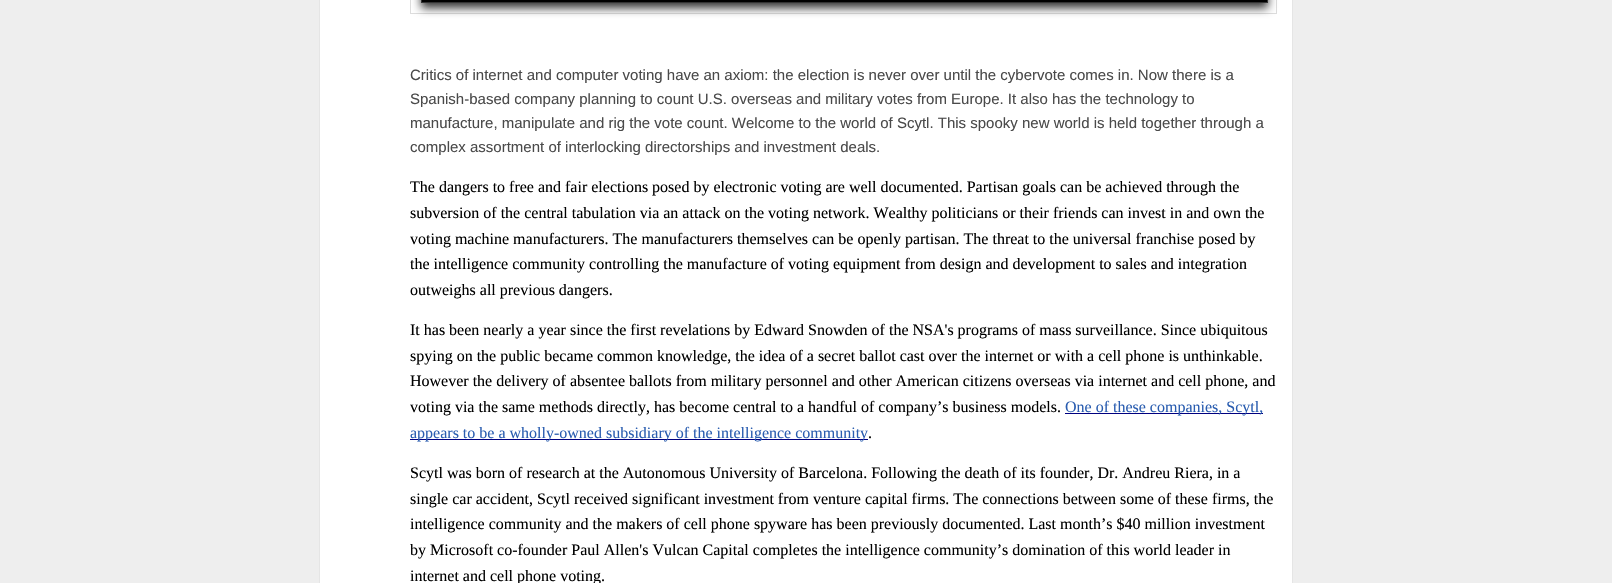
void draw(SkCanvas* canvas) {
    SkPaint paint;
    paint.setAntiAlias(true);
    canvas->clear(0xFFEEEEEE);
    paint.setColor(0xFFFFFFFF);
    canvas->drawRect(SkRect::MakeXYWH(319.5f, -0.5f, 973, 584), paint);
    paint.setStyle(SkPaint::kStroke_Style);
    paint.setStrokeWidth(1);
    paint.setColor(0xFFE5E5E5);
    canvas->drawRect(SkRect::MakeXYWH(319.5f, -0.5f, 973, 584), paint);
    paint.setColor(0xFFDDDDDD);
    canvas->drawRect(SkRect::MakeXYWH(410.5f, -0.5f, 866, 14), paint);
    paint.setStyle(SkPaint::kFill_Style);
    paint.setColor(0xFF333333);
    paint.setMaskFilter(SkMaskFilter::MakeBlur(kNormal_SkBlurStyle, 5));
    canvas->drawRect(SkRect::MakeXYWH(421, -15, 847, 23), paint);
    paint.setMaskFilter(nullptr);
    paint.setColor(0xFF000000);
    canvas->drawRect(SkRect::MakeXYWH(421.5f, -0.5f, 846, 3), paint);
    paint.setStyle(SkPaint::kStroke_Style);
    paint.setColor(0xFF333333);
    canvas->drawRect(SkRect::MakeXYWH(421.5f, -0.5f, 846, 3), paint);
    SkFont font1(fontMgr->matchFamilyStyle("Liberation Sans", SkFontStyle::Normal()), 15);
    font1.setSubpixel(true);
    paint.setStyle(SkPaint::kFill_Style);
    paint.setColor(0xFF4A4A4A);
    canvas->drawString("Critics of internet and computer voting have an axiom: the election is never over until the cybervote comes in. Now there is a", 410, 80, font1, paint);
    canvas->drawString("Spanish-based company planning to count U.S. overseas and military votes from Europe. It also has the technology to", 410, 104, font1, paint);
    canvas->drawString("manufacture, manipulate and rig the vote count. Welcome to the world of Scytl. This spooky new world is held together through a", 410, 128, font1, paint);
    canvas->drawString("complex assortment of interlocking directorships and investment deals.", 410, 152, font1, paint);
    SkFont font2(fontMgr->matchFamilyStyle("Liberation Serif", SkFontStyle::Normal()), 16);
    font2.setSubpixel(true);
    paint.setColor(0xFF000000);
    canvas->drawString("The dangers to free and fair elections posed by electronic voting are well documented. Partisan goals can be achieved through the", 410, 192, font2, paint);
    canvas->drawString("subversion of the central tabulation via an attack on the voting network. Wealthy politicians or their friends can invest in and own the", 410, 218, font2, paint);
    canvas->drawString("voting machine manufacturers. The manufacturers themselves can be openly partisan. The threat to the universal franchise posed by", 410, 244, font2, paint);
    canvas->drawString("the intelligence community controlling the manufacture of voting equipment from design and development to sales and integration", 410, 269, font2, paint);
    canvas->drawString("outweighs all previous dangers.", 410, 295, font2, paint);
    canvas->drawString("It has been nearly a year since the first revelations by Edward Snowden of the NSA's programs of mass surveillance. Since ubiquitous", 410, 335, font2, paint);
    canvas->drawString("spying on the public became common knowledge, the idea of a secret ballot cast over the internet or with a cell phone is unthinkable.", 410, 361, font2, paint);
    canvas->drawString("However the delivery of absentee ballots from military personnel and other American citizens overseas via internet and cell phone, and", 410, 386, font2, paint);
    canvas->drawString("voting via the same methods directly, has become central to a handful of company’s business models.", 410, 412, font2, paint);
    paint.setColor(0xFF000080);
    canvas->drawRect(SkRect::MakeXYWH(1065, 413, 198, 1), paint);
    paint.setColor(0xFF2A5DB0);
    canvas->drawString("One of these companies, Scytl,", 1065, 412, font2, paint);
    paint.setColor(0xFF000080);
    canvas->drawRect(SkRect::MakeXYWH(410, 439, 458, 1), paint);
    paint.setColor(0xFF2A5DB0);
    canvas->drawString("appears to be a wholly-owned subsidiary of the intelligence community", 410, 438, font2, paint);
    paint.setColor(0xFF000000);
    canvas->drawString(".", 868, 438, font2, paint);
    canvas->drawString("Scytl was born of research at the Autonomous University of Barcelona. Following the death of its founder, Dr. Andreu Riera, in a", 410, 478, font2, paint);
    canvas->drawString("single car accident, Scytl received significant investment from venture capital firms. The connections between some of these firms, the", 410, 504, font2, paint);
    canvas->drawString("intelligence community and the makers of cell phone spyware has been previously documented. Last month’s $40 million investment", 410, 529, font2, paint);
    canvas->drawString("by Microsoft co-founder Paul Allen's Vulcan Capital completes the intelligence community’s domination of this world leader in", 410, 555, font2, paint);
    canvas->drawString("internet and cell phone voting.", 410, 581, font2, paint);
}
